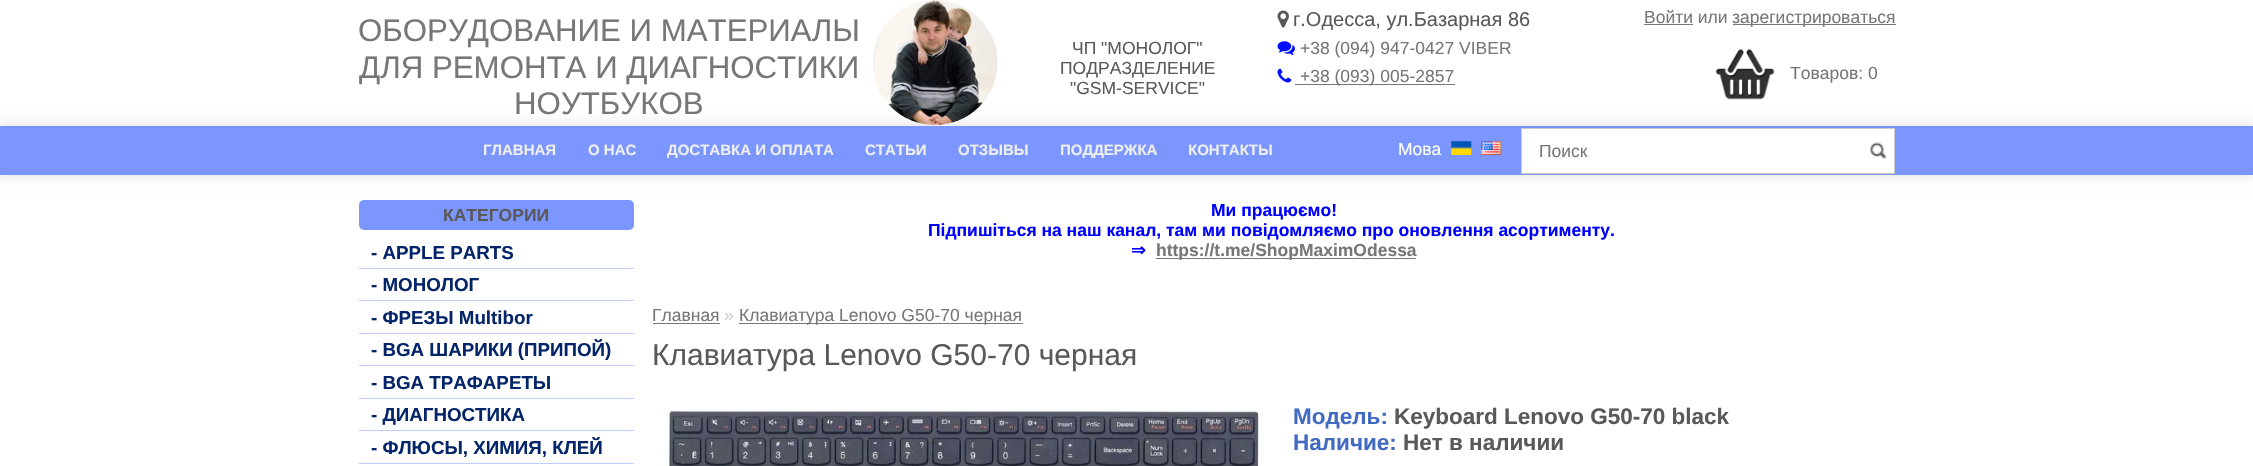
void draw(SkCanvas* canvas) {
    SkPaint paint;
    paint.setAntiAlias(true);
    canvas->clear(0xFFFFFFFF);
    SkFont font1(fontMgr->matchFamilyStyle("Liberation Sans", SkFontStyle::Normal()), 31.25f);
    font1.setSubpixel(true);
    paint.setColor(0xFF777777);
    canvas->drawString("ОБОРУДОВАНИЕ И МАТЕРИАЛЫ", 358, 41, font1, paint);
    canvas->drawString("ДЛЯ РЕМОНТА И ДИАГНОСТИКИ", 359, 78, font1, paint);
    paint.setColor(0xFFE0E0E0);
    paint.setMaskFilter(SkMaskFilter::MakeBlur(kNormal_SkBlurStyle, 6));
    canvas->drawRect(SkRect::MakeXYWH(-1, 125, 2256, 51), paint);
    paint.setMaskFilter(nullptr);
    paint.setColor(0xFF777777);
    canvas->drawString("НОУТБУКОВ", 514, 114, font1, paint);
    canvas->drawImageRect(SkImages::DeferredFromEncodedData(SkData::MakeFromFileName("img1.png")), SkRect::MakeXYWH(872, 0, 126, 125), SkSamplingOptions());
    SkFont font2(fontMgr->matchFamilyStyle("Liberation Sans", SkFontStyle::Normal()), 17.5f);
    font2.setSubpixel(true);
    paint.setColor(0xFF595959);
    canvas->drawString("ЧП \"МОНОЛОГ\"", 1072, 54, font2, paint);
    canvas->drawString("ПОДРАЗДЕЛЕНИЕ", 1060, 74, font2, paint);
    canvas->drawString("\"GSM-SERVICE\"", 1070, 94, font2, paint);
    canvas->drawImageRect(SkImages::DeferredFromEncodedData(SkData::MakeFromFileName("img2.png")), SkRect::MakeXYWH(1277, 10, 12, 18), SkSamplingOptions());
    SkFont font3(fontMgr->matchFamilyStyle("Liberation Sans", SkFontStyle::Normal()), 20);
    font3.setSubpixel(true);
    canvas->drawString("г.Одесса, ул.Базарная 86", 1293, 26, font3, paint);
    canvas->drawImageRect(SkImages::DeferredFromEncodedData(SkData::MakeFromFileName("img3.png")), SkRect::MakeXYWH(1277, 41, 18, 14), SkSamplingOptions());
    paint.setColor(0xFF777777);
    canvas->drawString("+38 (094) 947-0427 VIBER", 1300, 54, font2, paint);
    canvas->drawImageRect(SkImages::DeferredFromEncodedData(SkData::MakeFromFileName("img4.png")), SkRect::MakeXYWH(1277, 68, 15, 15), SkSamplingOptions());
    canvas->drawRect(SkRect::MakeXYWH(1295, 84, 160, 1), paint);
    canvas->drawString("+38 (093) 005-2857", 1300, 82, font2, paint);
    canvas->drawString("Войти или", 1644, 23, font2, paint);
    canvas->drawRect(SkRect::MakeXYWH(1644, 24, 49, 1), paint);
    canvas->drawRect(SkRect::MakeXYWH(1733, 24, 163, 1), paint);
    canvas->drawString("зарегистрироваться", 1732, 23, font2, paint);
    canvas->drawImageRect(SkImages::DeferredFromEncodedData(SkData::MakeFromFileName("img5.png")), SkRect::MakeXYWH(1715, 49, 60, 51), SkSamplingOptions());
    canvas->drawString("Товаров: 0", 1790, 79, font2, paint);
    paint.setColor(0xFF7B96FF);
    canvas->drawRect(SkRect::MakeXYWH(0, 126, 2253, 49), paint);
    paint.setColor(0xFFFFFFFF);
    canvas->drawRect(SkRect::MakeXYWH(1521.5f, 128.5f, 373, 45), paint);
    paint.setStyle(SkPaint::kStroke_Style);
    paint.setStrokeWidth(1);
    paint.setColor(0xFFCCCCCC);
    canvas->drawRect(SkRect::MakeXYWH(1521.5f, 128.5f, 373, 45), paint);
    paint.setStyle(SkPaint::kFill_Style);
    paint.setColor(0xFF777777);
    canvas->drawString("Поиск", 1539, 157, font2, paint);
    canvas->drawImageRect(SkImages::DeferredFromEncodedData(SkData::MakeFromFileName("img6.png")), SkRect::MakeXYWH(1870, 142, 17, 17), SkSamplingOptions());
    SkFont font4(fontMgr->matchFamilyStyle("Liberation Sans", SkFontStyle::Bold()), 15);
    font4.setSubpixel(true);
    paint.setColor(0xFFEEEEEE);
    canvas->drawString("ГЛАВНАЯ", 483, 155, font4, paint);
    canvas->drawString("О НАС", 588, 155, font4, paint);
    canvas->drawString("ДОСТАВКА И ОПЛАТА", 667, 155, font4, paint);
    canvas->drawString("СТАТЬИ", 865, 155, font4, paint);
    canvas->drawString("ОТЗЫВЫ", 958, 155, font4, paint);
    canvas->drawString("ПОДДЕРЖКА", 1060, 155, font4, paint);
    canvas->drawString("КОНТАКТЫ", 1188, 155, font4, paint);
    paint.setColor(0xFFFFFFFF);
    canvas->drawString("Мова", 1398, 155, font2, paint);
    canvas->drawImageRect(SkImages::DeferredFromEncodedData(SkData::MakeFromFileName("img7.png")), SkRect::MakeXYWH(1451, 141, 21, 14), SkSamplingOptions());
    canvas->drawImageRect(SkImages::DeferredFromEncodedData(SkData::MakeFromFileName("img8.png")), SkRect::MakeXYWH(1481, 141, 21, 14), SkSamplingOptions());
    paint.setColor(0xFF7B96FF);
    canvas->drawRoundRect(SkRect::MakeXYWH(359, 200, 275, 30), 5, 5, paint);
    SkFont font5(fontMgr->matchFamilyStyle("Liberation Sans", SkFontStyle::Bold()), 17.5f);
    font5.setSubpixel(true);
    paint.setColor(0xFF595959);
    canvas->drawString("КАТЕГОРИИ", 443, 221, font5, paint);
    paint.setColor(0xFFC0CDFF);
    canvas->drawRect(SkRect::MakeXYWH(359, 268, 275, 1), paint);
    SkFont font6(fontMgr->matchFamilyStyle("Liberation Sans", SkFontStyle::Bold()), 18.75f);
    font6.setSubpixel(true);
    paint.setColor(0xFF042569);
    canvas->drawString("- APPLE PARTS", 371, 259, font6, paint);
    paint.setColor(0xFFC0CDFF);
    canvas->drawRect(SkRect::MakeXYWH(359, 300, 275, 1), paint);
    paint.setColor(0xFF042569);
    canvas->drawString("- МОНОЛОГ", 371, 291, font6, paint);
    paint.setColor(0xFFC0CDFF);
    canvas->drawRect(SkRect::MakeXYWH(359, 333, 275, 1), paint);
    paint.setColor(0xFF042569);
    canvas->drawString("- ФРЕЗЫ Multibor", 371, 324, font6, paint);
    paint.setColor(0xFFC0CDFF);
    canvas->drawRect(SkRect::MakeXYWH(359, 365, 275, 1), paint);
    paint.setColor(0xFF042569);
    canvas->drawString("- BGA ШАРИКИ (ПРИПОЙ)", 371, 356, font6, paint);
    paint.setColor(0xFFC0CDFF);
    canvas->drawRect(SkRect::MakeXYWH(359, 398, 275, 1), paint);
    paint.setColor(0xFF042569);
    canvas->drawString("- BGA ТРАФАРЕТЫ", 371, 389, font6, paint);
    paint.setColor(0xFFC0CDFF);
    canvas->drawRect(SkRect::MakeXYWH(359, 430, 275, 1), paint);
    paint.setColor(0xFF042569);
    canvas->drawString("- ДИАГНОСТИКА", 371, 421, font6, paint);
    paint.setColor(0xFFC0CDFF);
    canvas->drawRect(SkRect::MakeXYWH(359, 463, 275, 1), paint);
    paint.setColor(0xFF042569);
    canvas->drawString("- ФЛЮСЫ, ХИМИЯ, КЛЕЙ", 371, 454, font6, paint);
    paint.setColor(0xFF0000FF);
    canvas->drawString("Ми працюємо!", 1211, 216, font5, paint);
    canvas->drawString("Підпишіться на наш канал, там ми повідомляємо про оновлення асортименту.", 928, 236, font5, paint);
    SkFont font7(fontMgr->matchFamilyStyle("DejaVu Sans", SkFontStyle::Bold()), 17.5f);
    font7.setSubpixel(true);
    canvas->drawString("⇒", 1131, 256, font7, paint);
    paint.setColor(0xFF777777);
    canvas->drawRect(SkRect::MakeXYWH(1156, 258, 260, 1), paint);
    canvas->drawString("https://t.me/ShopMaximOdessa", 1156, 256, font5, paint);
    canvas->drawString("Главная", 652, 321, font2, paint);
    canvas->drawRect(SkRect::MakeXYWH(653, 323, 67, 1), paint);
    paint.setColor(0xFFCCCCCC);
    canvas->drawString("»", 724, 321, font2, paint);
    paint.setColor(0xFF777777);
    canvas->drawRect(SkRect::MakeXYWH(739, 323, 284, 1), paint);
    canvas->drawString("Клавиатура Lenovo G50-70 черная", 739, 321, font2, paint);
    SkFont font8(fontMgr->matchFamilyStyle("Liberation Sans", SkFontStyle::Normal()), 30);
    font8.setSubpixel(true);
    paint.setColor(0xFF595959);
    canvas->drawString("Клавиатура Lenovo G50-70 черная", 652, 365, font8, paint);
    canvas->drawImageRect(SkImages::DeferredFromEncodedData(SkData::MakeFromFileName("img9.png")), SkRect::MakeXYWH(665, 410, 596, 56), SkSamplingOptions());
    SkFont font9(fontMgr->matchFamilyStyle("Liberation Sans", SkFontStyle::Bold()), 22.5f);
    font9.setSubpixel(true);
    paint.setColor(0xFF426AC0);
    canvas->drawString("Модель:", 1293, 424, font9, paint);
    paint.setColor(0xFF595959);
    canvas->drawString("Keyboard Lenovo G50-70 black", 1394, 424, font9, paint);
    paint.setColor(0xFF426AC0);
    canvas->drawString("Наличие:", 1293, 450, font9, paint);
    paint.setColor(0xFF595959);
    canvas->drawString("Нет в наличии", 1403, 450, font9, paint);
}
